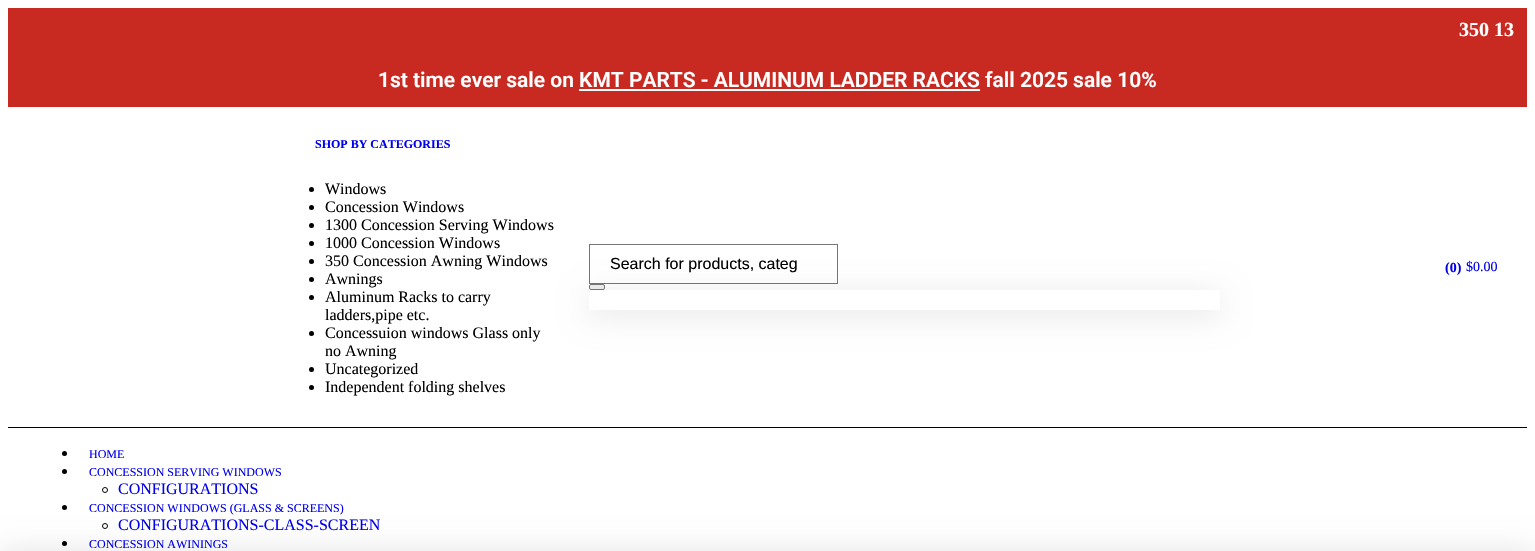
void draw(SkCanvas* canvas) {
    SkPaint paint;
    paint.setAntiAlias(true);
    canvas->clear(0xFFFFFFFF);
    paint.setColor(0xFFC82921);
    canvas->drawRect(SkRect::MakeXYWH(8, 8, 1519, 99), paint);
    SkFont font1(fontMgr->matchFamilyStyle("Liberation Serif", SkFontStyle::Bold()), 20);
    font1.setSubpixel(true);
    paint.setColor(0xFFFFFFFF);
    canvas->drawString("350 13", 1459, 36, font1, paint);
    SkFont font2(fontMgr->matchFamilyStyle("Roboto", SkFontStyle(600, SkFontStyle::kNormal_Width, SkFontStyle::kUpright_Slant)), 21);
    font2.setSubpixel(true);
    canvas->drawString("1st time ever sale on KMT PARTS - ALUMINUM LADDER RACKS fall 2025 sale 10%", 378, 87, font2, paint);
    canvas->drawRect(SkRect::MakeXYWH(579, 89, 401, 2), paint);
    SkFont font3(fontMgr->matchFamilyStyle("Liberation Serif", SkFontStyle::Bold()), 12);
    font3.setSubpixel(true);
    paint.setColor(0xFF0000EE);
    canvas->drawString("SHOP BY CATEGORIES", 315, 148, font3, paint);
    paint.setColor(0xFF000000);
    canvas->drawCircle(311.5f, 189.5f, 2.5f, paint);
    SkFont font4(fontMgr->matchFamilyStyle("Liberation Serif", SkFontStyle::Normal()), 16);
    font4.setSubpixel(true);
    canvas->drawString("Windows", 325, 194, font4, paint);
    canvas->drawCircle(311.5f, 207.5f, 2.5f, paint);
    canvas->drawString("Concession Windows", 325, 212, font4, paint);
    canvas->drawCircle(311.5f, 225.5f, 2.5f, paint);
    canvas->drawString("1300 Concession Serving Windows", 325, 230, font4, paint);
    canvas->drawCircle(311.5f, 243.5f, 2.5f, paint);
    canvas->drawString("1000 Concession Windows", 325, 248, font4, paint);
    canvas->drawCircle(311.5f, 261.5f, 2.5f, paint);
    canvas->drawString("350 Concession Awning Windows", 325, 266, font4, paint);
    canvas->drawCircle(311.5f, 279.5f, 2.5f, paint);
    canvas->drawString("Awnings", 325, 284, font4, paint);
    canvas->drawCircle(311.5f, 297.5f, 2.5f, paint);
    canvas->drawString("Aluminum Racks to carry", 325, 302, font4, paint);
    canvas->drawString("ladders,pipe etc.", 325, 320, font4, paint);
    canvas->drawCircle(311.5f, 333.5f, 2.5f, paint);
    canvas->drawString("Concessuion windows Glass only", 325, 338, font4, paint);
    canvas->drawString("no Awning", 325, 356, font4, paint);
    canvas->drawCircle(311.5f, 369.5f, 2.5f, paint);
    canvas->drawString("Uncategorized", 325, 374, font4, paint);
    canvas->drawCircle(311.5f, 387.5f, 2.5f, paint);
    canvas->drawString("Independent folding shelves", 325, 392, font4, paint);
    paint.setStyle(SkPaint::kStroke_Style);
    paint.setStrokeWidth(1);
    paint.setColor(0xFF767676);
    canvas->drawRect(SkRect::MakeXYWH(589.5f, 244.5f, 248, 39), paint);
    paint.setStyle(SkPaint::kFill_Style);
    paint.setColor(0xFFEFEFEF);
    canvas->drawRoundRect(SkRect::MakeXYWH(589.5f, 284.5f, 15, 5), 1.5f, 1.5f, paint);
    paint.setStyle(SkPaint::kStroke_Style);
    paint.setColor(0xFF767676);
    canvas->drawRoundRect(SkRect::MakeXYWH(589.5f, 284.5f, 15, 5), 1.5f, 1.5f, paint);
    canvas->save();
    canvas->clipPath(SkPathBuilder(SkPathFillType::kEvenOdd).moveTo(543, 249).lineTo(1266, 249).lineTo(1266, 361).lineTo(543, 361).close().moveTo(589, 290).lineTo(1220, 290).lineTo(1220, 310).lineTo(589, 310).close().detach(), true);
    paint.setStyle(SkPaint::kFill_Style);
    paint.setColor(0x1A000000);
    paint.setMaskFilter(SkMaskFilter::MakeBlur(kNormal_SkBlurStyle, 15));
    canvas->drawRect(SkRect::MakeXYWH(589, 295, 631, 20), paint);
    paint.setMaskFilter(nullptr);
    canvas->restore();
    SkFont font5(fontMgr->matchFamilyStyle("Liberation Sans", SkFontStyle::Normal()), 16);
    font5.setSubpixel(true);
    paint.setColor(0xFF000000);
    canvas->drawString("Search for products, categ", 610, 269, font5, paint);
    SkFont font6(fontMgr->matchFamilyStyle("Liberation Serif", SkFontStyle::Bold()), 14);
    font6.setSubpixel(true);
    paint.setColor(0xFF0000EE);
    canvas->drawString("(0)", 1445, 272, font6, paint);
    SkFont font7(fontMgr->matchFamilyStyle("Liberation Serif", SkFontStyle::Normal()), 14);
    font7.setSubpixel(true);
    canvas->drawString("$0.00", 1466, 271, font7, paint);
    paint.setColor(0xFF000000);
    canvas->drawRect(SkRect::MakeXYWH(8, 427, 1519, 1), paint);
    canvas->drawCircle(64.5f, 453.5f, 2.5f, paint);
    SkFont font8(fontMgr->matchFamilyStyle("Liberation Serif", SkFontStyle::Normal()), 12);
    font8.setSubpixel(true);
    paint.setColor(0xFF0000EE);
    canvas->drawString("HOME", 89, 458, font8, paint);
    paint.setColor(0xFF000000);
    canvas->drawCircle(64.5f, 471.5f, 2.5f, paint);
    paint.setColor(0xFF0000EE);
    canvas->drawString("CONCESSION SERVING WINDOWS", 89, 476, font8, paint);
    paint.setStyle(SkPaint::kStroke_Style);
    paint.setColor(0xFF000000);
    canvas->drawCircle(105, 490, 2.5f, paint);
    paint.setStyle(SkPaint::kFill_Style);
    paint.setColor(0xFF0000EE);
    canvas->drawString("CONFIGURATIONS", 118, 494, font4, paint);
    paint.setColor(0xFF000000);
    canvas->drawCircle(64.5f, 507.5f, 2.5f, paint);
    paint.setColor(0xFF0000EE);
    canvas->drawString("CONCESSION WINDOWS (GLASS & SCREENS)", 89, 512, font8, paint);
    paint.setStyle(SkPaint::kStroke_Style);
    paint.setColor(0xFF000000);
    canvas->drawCircle(105, 526, 2.5f, paint);
    paint.setStyle(SkPaint::kFill_Style);
    paint.setColor(0xFF0000EE);
    canvas->drawString("CONFIGURATIONS-CLASS-SCREEN", 118, 530, font4, paint);
    paint.setColor(0xFF000000);
    canvas->drawCircle(64.5f, 543.5f, 2.5f, paint);
    paint.setColor(0xFF0000EE);
    canvas->drawString("CONCESSION AWININGS", 89, 548, font8, paint);
    paint.setColor(0x1A000000);
    paint.setMaskFilter(SkMaskFilter::MakeBlur(kNormal_SkBlurStyle, 15));
    canvas->drawRect(SkRect::MakeXYWH(0, 551, 1535, 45), paint);
    paint.setMaskFilter(nullptr);
}
